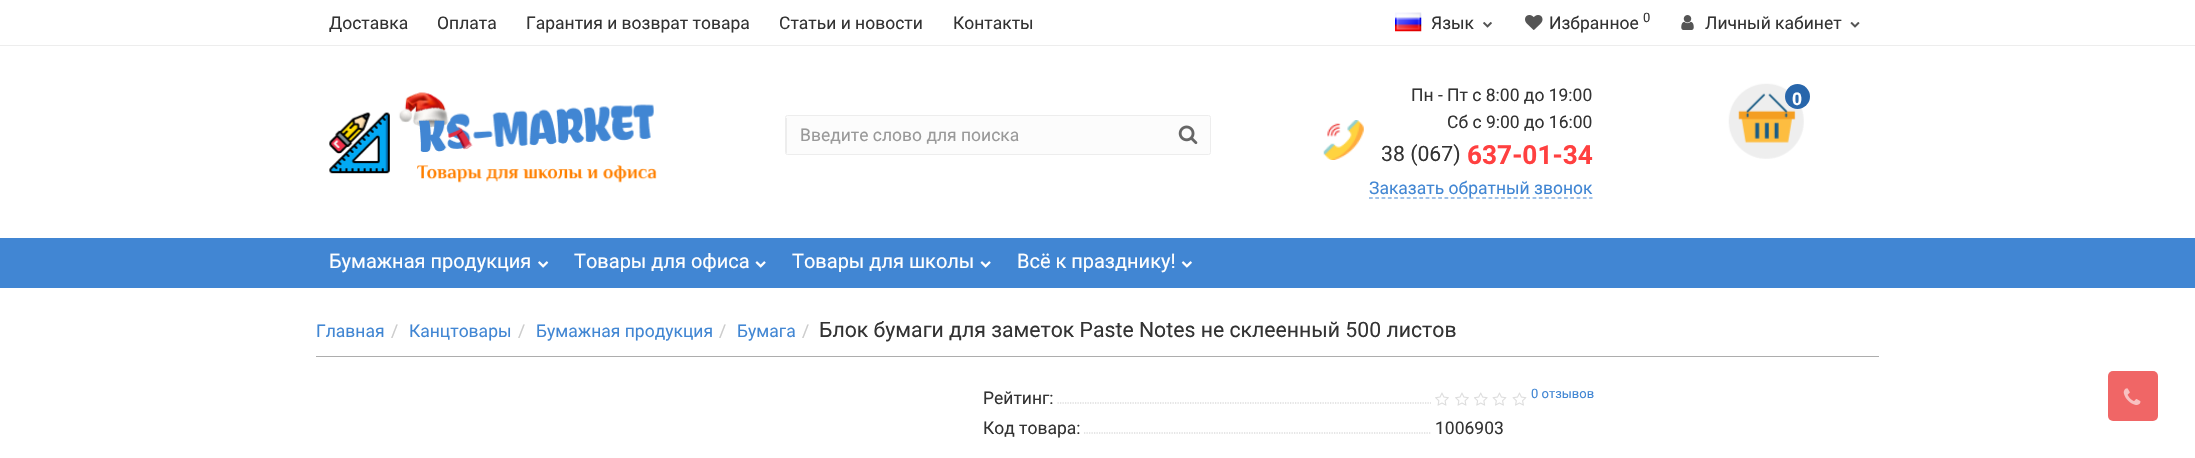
void draw(SkCanvas* canvas) {
    SkPaint paint;
    paint.setAntiAlias(true);
    canvas->clear(0xFFFFFFFF);
    paint.setColor(0xFFEDEDED);
    canvas->drawRect(SkRect::MakeXYWH(0, 45, 2195, 1), paint);
    SkFont font1(fontMgr->matchFamilyStyle("Roboto", SkFontStyle::Normal()), 17.5f);
    font1.setSubpixel(true);
    paint.setColor(0xFF333333);
    canvas->drawString("Доставка", 329, 29, font1, paint);
    canvas->drawString("Оплата", 437, 29, font1, paint);
    canvas->drawString("Гарантия и возврат товара", 526, 29, font1, paint);
    canvas->drawString("Статьи и новости", 779, 29, font1, paint);
    canvas->drawString("Контакты", 953, 29, font1, paint);
    canvas->drawImageRect(SkImages::DeferredFromEncodedData(SkData::MakeFromFileName("img1.png")), SkRect::MakeXYWH(1395, 12, 27, 20), SkSamplingOptions());
    canvas->drawString("Язык", 1431, 29, font1, paint);
    canvas->drawImageRect(SkImages::DeferredFromEncodedData(SkData::MakeFromFileName("img2.png")), SkRect::MakeXYWH(1483, 22, 9, 6), SkSamplingOptions());
    canvas->drawImageRect(SkImages::DeferredFromEncodedData(SkData::MakeFromFileName("img3.png")), SkRect::MakeXYWH(1525, 15, 18, 15), SkSamplingOptions());
    canvas->drawString("Избранное", 1549, 29, font1, paint);
    SkFont font2(fontMgr->matchFamilyStyle("Roboto", SkFontStyle::Normal()), 13);
    font2.setSubpixel(true);
    canvas->drawString("0", 1643, 22, font2, paint);
    canvas->drawImageRect(SkImages::DeferredFromEncodedData(SkData::MakeFromFileName("img4.png")), SkRect::MakeXYWH(1681, 15, 13, 15), SkSamplingOptions());
    canvas->drawString("Личный кабинет", 1705, 29, font1, paint);
    canvas->drawImageRect(SkImages::DeferredFromEncodedData(SkData::MakeFromFileName("img5.png")), SkRect::MakeXYWH(1850, 22, 10, 6), SkSamplingOptions());
    canvas->drawImageRect(SkImages::DeferredFromEncodedData(SkData::MakeFromFileName("img6.png")), SkRect::MakeXYWH(329, 92, 328, 91), SkSamplingOptions());
    canvas->drawImageRect(SkImages::DeferredFromEncodedData(SkData::MakeFromFileName("img7.png")), SkRect::MakeXYWH(1323, 120, 41, 40), SkSamplingOptions());
    canvas->drawString("Пн - Пт с 8:00 до 19:00", 1411, 101, font1, paint);
    canvas->drawString("Сб с 9:00 до 16:00", 1447, 128, font1, paint);
    SkFont font3(fontMgr->matchFamilyStyle("Roboto", SkFontStyle::Normal()), 21.25f);
    font3.setSubpixel(true);
    canvas->drawString("38 (067)", 1381, 161, font3, paint);
    SkFont font4(fontMgr->matchFamilyStyle("Roboto", SkFontStyle::Bold()), 26.25f);
    font4.setSubpixel(true);
    paint.setColor(0xFFFF4040);
    canvas->drawString("637-01-34", 1467, 164, font4, paint);
    paint.setStyle(SkPaint::kStroke_Style);
    paint.setStrokeWidth(1.2f);
    paint.setColor(0xFF4186D3);
    paint.setPathEffect(SkDashPathEffect::Make({{3.75f, 2.54f}}, 0));
    canvas->drawPath(SkPathBuilder().moveTo(1369, 198).lineTo(1592.5f, 198).detach(), paint);
    paint.setPathEffect(nullptr);
    paint.setStyle(SkPaint::kFill_Style);
    canvas->drawString("Заказать обратный звонок", 1369, 194, font1, paint);
    canvas->drawImageRect(SkImages::DeferredFromEncodedData(SkData::MakeFromFileName("img8.png")), SkRect::MakeXYWH(1728, 83, 76, 76), SkSamplingOptions());
    paint.setColor(0xFF2866AB);
    canvas->drawCircle(1797.5f, 96.5f, 12.5f, paint);
    SkFont font5(fontMgr->matchFamilyStyle("Roboto", SkFontStyle::Bold()), 17.5f);
    font5.setSubpixel(true);
    paint.setColor(0xFFFFFFFF);
    canvas->drawString("0", 1792, 105, font5, paint);
    paint.setColor(0xFFFCFCFC);
    canvas->drawRoundRect(SkRect::MakeXYWH(785.5f, 115.5f, 425, 39), 2, 2, paint);
    paint.setStyle(SkPaint::kStroke_Style);
    paint.setStrokeWidth(1);
    paint.setColor(0xFFEDEDED);
    canvas->drawRoundRect(SkRect::MakeXYWH(785.5f, 115.5f, 425, 39), 2, 2, paint);
    paint.setStyle(SkPaint::kFill_Style);
    canvas->drawRect(SkRect::MakeXYWH(786, 118, 1, 35), paint);
    paint.setColor(0xFF999999);
    canvas->drawString("Введите слово для поиска", 800, 141, font1, paint);
    canvas->drawImageRect(SkImages::DeferredFromEncodedData(SkData::MakeFromFileName("img9.png")), SkRect::MakeXYWH(1178, 125, 20, 20), SkSamplingOptions());
    paint.setColor(0xFF4186D3);
    canvas->drawRect(SkRect::MakeXYWH(0, 238, 2195, 50), paint);
    SkFont font6(fontMgr->matchFamilyStyle("Roboto", SkFontStyle::Normal()), 20);
    font6.setSubpixel(true);
    paint.setColor(0xFFFFFFFF);
    canvas->drawString("Бумажная продукция", 329, 268, font6, paint);
    canvas->drawImageRect(SkImages::DeferredFromEncodedData(SkData::MakeFromFileName("img10.png")), SkRect::MakeXYWH(538, 261, 11, 7), SkSamplingOptions());
    canvas->drawString("Товары для офиса", 574, 268, font6, paint);
    canvas->drawImageRect(SkImages::DeferredFromEncodedData(SkData::MakeFromFileName("img11.png")), SkRect::MakeXYWH(755, 261, 11, 7), SkSamplingOptions());
    canvas->drawString("Товары для школы", 792, 268, font6, paint);
    canvas->drawImageRect(SkImages::DeferredFromEncodedData(SkData::MakeFromFileName("img11.png")), SkRect::MakeXYWH(980, 261, 11, 7), SkSamplingOptions());
    canvas->drawString("Всё к празднику!", 1017, 268, font6, paint);
    canvas->drawImageRect(SkImages::DeferredFromEncodedData(SkData::MakeFromFileName("img12.png")), SkRect::MakeXYWH(1181, 261, 11, 7), SkSamplingOptions());
    paint.setColor(0xFFADADAD);
    canvas->drawRect(SkRect::MakeXYWH(316, 356, 1563, 1), paint);
    paint.setColor(0xFF4186D3);
    canvas->drawString("Главная", 316, 337, font1, paint);
    paint.setColor(0xFFCCCCCC);
    canvas->drawString("/", 391, 337, font1, paint);
    paint.setColor(0xFF4186D3);
    canvas->drawString("Канцтовары", 409, 337, font1, paint);
    paint.setColor(0xFFCCCCCC);
    canvas->drawString("/", 518, 337, font1, paint);
    paint.setColor(0xFF4186D3);
    canvas->drawString("Бумажная продукция", 536, 337, font1, paint);
    paint.setColor(0xFFCCCCCC);
    canvas->drawString("/", 719, 337, font1, paint);
    paint.setColor(0xFF4186D3);
    canvas->drawString("Бумага", 737, 337, font1, paint);
    paint.setColor(0xFFCCCCCC);
    canvas->drawString("/", 802, 337, font1, paint);
    paint.setColor(0xFF333333);
    canvas->drawString("Блок бумаги для заметок Paste Notes не склеенный 500 листов", 819, 337, font3, paint);
    canvas->drawString("Рейтинг:", 983, 404, font1, paint);
    canvas->save();
    canvas->clipRect(SkRect::MakeXYWH(983, 383, 448, 30));
    paint.setStyle(SkPaint::kStroke_Style);
    paint.setStrokeWidth(1.2f);
    paint.setColor(0xFFCCCCCC);
    paint.setPathEffect(SkDashPathEffect::Make({{1.25f, 1.25f}}, 0));
    canvas->drawPath(SkPathBuilder().moveTo(1057.5f, 403).lineTo(1505, 403).detach(), paint);
    paint.setPathEffect(nullptr);
    canvas->restore();
    canvas->drawImageRect(SkImages::DeferredFromEncodedData(SkData::MakeFromFileName("img13.png")), SkRect::MakeXYWH(1435, 392, 14, 14), SkSamplingOptions());
    canvas->drawImageRect(SkImages::DeferredFromEncodedData(SkData::MakeFromFileName("img13.png")), SkRect::MakeXYWH(1455, 392, 14, 14), SkSamplingOptions());
    canvas->drawImageRect(SkImages::DeferredFromEncodedData(SkData::MakeFromFileName("img14.png")), SkRect::MakeXYWH(1474, 392, 14, 14), SkSamplingOptions());
    canvas->drawImageRect(SkImages::DeferredFromEncodedData(SkData::MakeFromFileName("img15.png")), SkRect::MakeXYWH(1492, 392, 15, 14), SkSamplingOptions());
    canvas->drawImageRect(SkImages::DeferredFromEncodedData(SkData::MakeFromFileName("img15.png")), SkRect::MakeXYWH(1512, 392, 15, 14), SkSamplingOptions());
    paint.setStyle(SkPaint::kFill_Style);
    paint.setColor(0xFF4186D3);
    canvas->drawString("0 отзывов", 1531, 398, font2, paint);
    paint.setColor(0xFF333333);
    canvas->drawString("Код товара:", 983, 434, font1, paint);
    canvas->save();
    canvas->clipRect(SkRect::MakeXYWH(983, 413, 448, 30));
    paint.setStyle(SkPaint::kStroke_Style);
    paint.setColor(0xFFCCCCCC);
    paint.setPathEffect(SkDashPathEffect::Make({{1.25f, 1.25f}}, 0));
    canvas->drawPath(SkPathBuilder().moveTo(1084, 433).lineTo(1532.5f, 433).detach(), paint);
    paint.setPathEffect(nullptr);
    canvas->restore();
    paint.setStyle(SkPaint::kFill_Style);
    paint.setColor(0xFF333333);
    canvas->drawString("1006903", 1435, 434, font1, paint);
    paint.setColor(0xFFF06666);
    canvas->drawRoundRect(SkRect::MakeXYWH(2108, 371, 50, 50), 5, 5, paint);
    canvas->drawImageRect(SkImages::DeferredFromEncodedData(SkData::MakeFromFileName("img16.png")), SkRect::MakeXYWH(2123, 388, 18, 17), SkSamplingOptions());
}
